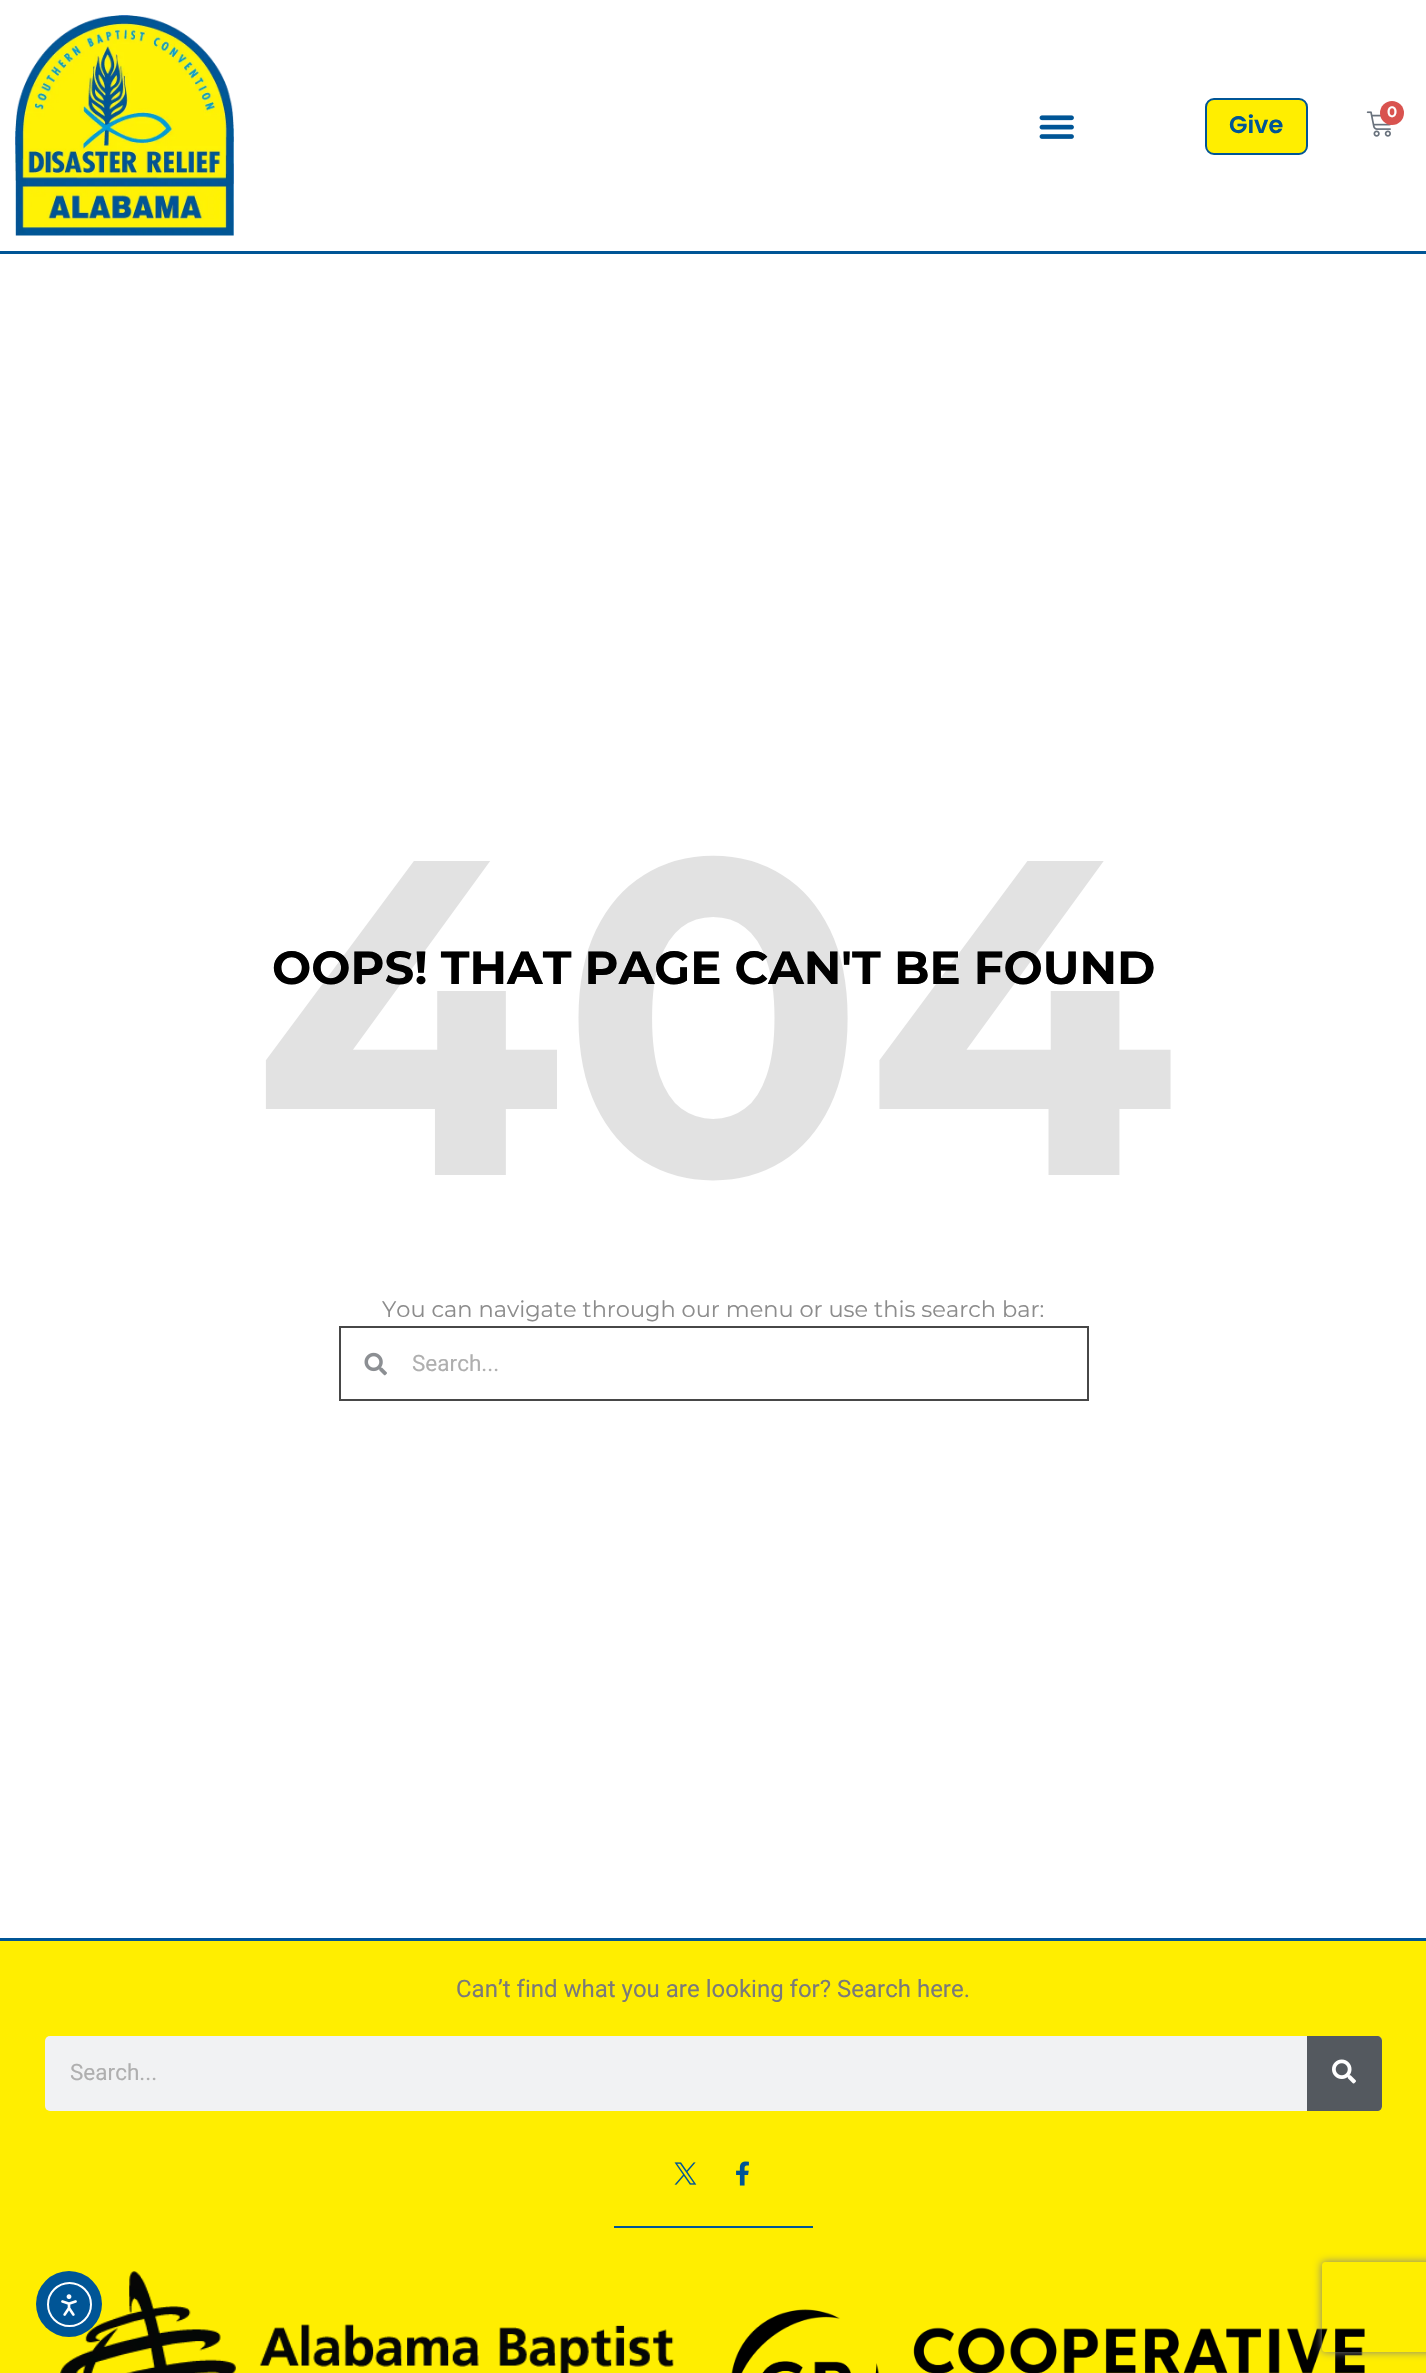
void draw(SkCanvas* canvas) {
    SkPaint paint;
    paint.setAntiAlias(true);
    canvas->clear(0xFFFFFFFF);
    paint.setColor(0xFF005596);
    canvas->drawRect(SkRect::MakeXYWH(0, 251, 1426, 3), paint);
    canvas->drawImageRect(SkImages::DeferredFromEncodedData(SkData::MakeFromFileName("img1.png")), SkRect::MakeXYWH(15, 15, 219, 221), SkSamplingOptions());
    canvas->drawImageRect(SkImages::DeferredFromEncodedData(SkData::MakeFromFileName("img2.png")), SkRect::MakeXYWH(1366, 111, 26, 26), SkSamplingOptions());
    paint.setColor(0xFFD9534F);
    canvas->drawCircle(1392, 113, 12, paint);
    SkFont font1(fontMgr->matchFamilyStyle("Montserrat", SkFontStyle(600, SkFontStyle::kNormal_Width, SkFontStyle::kUpright_Slant)), 15);
    font1.setSubpixel(true);
    paint.setColor(0xFFFFFFFF);
    canvas->drawString("0", 1387, 117, font1, paint);
    canvas->drawImageRect(SkImages::DeferredFromEncodedData(SkData::MakeFromFileName("img3.png")), SkRect::MakeXYWH(1039, 115, 35, 24), SkSamplingOptions());
    paint.setColor(0xFFFFEE00);
    canvas->drawRoundRect(SkRect::MakeXYWH(1206, 99, 101, 55), 8, 8, paint);
    paint.setStyle(SkPaint::kStroke_Style);
    paint.setStrokeWidth(2);
    paint.setColor(0xFF005596);
    canvas->drawRoundRect(SkRect::MakeXYWH(1206, 99, 101, 55), 8, 8, paint);
    SkFont font2(fontMgr->matchFamilyStyle("Poppins", SkFontStyle(600, SkFontStyle::kNormal_Width, SkFontStyle::kUpright_Slant)), 24);
    font2.setSubpixel(true);
    paint.setStyle(SkPaint::kFill_Style);
    canvas->drawString("Give", 1229, 133, font2, paint);
    SkFont font3(fontMgr->matchFamilyStyle("Montserrat", SkFontStyle::Bold()), 448.5f);
    font3.setSubpixel(true);
    paint.setColor(0xFFE2E2E2);
    canvas->drawString("404", 252, 1175, font3, paint);
    SkFont font4(fontMgr->matchFamilyStyle("Montserrat", SkFontStyle::Bold()), 46.5f);
    font4.setSubpixel(true);
    paint.setColor(0xFF000000);
    canvas->drawString("OOPS! THAT PAGE CAN'T BE FOUND", 272, 984, font4, paint);
    SkFont font5(fontMgr->matchFamilyStyle("Montserrat", SkFontStyle::Normal()), 22.5f);
    font5.setSubpixel(true);
    paint.setColor(0xFF8C8C8C);
    canvas->drawString("You can navigate through our menu or use this search bar:", 382, 1317, font5, paint);
    paint.setStyle(SkPaint::kStroke_Style);
    paint.setColor(0xFF474747);
    canvas->drawRect(SkRect::MakeXYWH(340, 1327, 748, 73), paint);
    canvas->drawImageRect(SkImages::DeferredFromEncodedData(SkData::MakeFromFileName("img4.png")), SkRect::MakeXYWH(364, 1352, 23, 24), SkSamplingOptions());
    SkFont font6(fontMgr->matchFamilyStyle("Roboto", SkFontStyle::Normal()), 22.5f);
    font6.setSubpixel(true);
    paint.setStyle(SkPaint::kFill_Style);
    paint.setColor(0xFFAFAFAF);
    canvas->drawString("Search...", 412, 1371, font6, paint);
    paint.setColor(0xFFFFEE00);
    canvas->drawRect(SkRect::MakeXYWH(0, 1941, 1426, 432), paint);
    paint.setColor(0xFF005596);
    canvas->drawRect(SkRect::MakeXYWH(0, 1938, 1426, 3), paint);
    SkFont font7(fontMgr->matchFamilyStyle("Roboto", SkFontStyle::Normal()), 24);
    font7.setSubpixel(true);
    paint.setColor(0xFF7A7A7A);
    canvas->drawString("Can’t find what you are looking for? Search here.", 456, 1997, font7, paint);
    paint.setColor(0xFFF1F2F3);
    canvas->drawRoundRect(SkRect::MakeXYWH(45, 2036, 1337, 75), 5, 5, paint);
    paint.setColor(0xFFAFAFAF);
    canvas->drawString("Search...", 70, 2080, font6, paint);
    paint.setColor(0xFF54595F);
    canvas->drawPath(SkPathBuilder().moveTo(1307, 2036).lineTo(1377, 2036).cubicTo(1380, 2036, 1382, 2038, 1382, 2041).lineTo(1382, 2106).cubicTo(1382, 2109, 1380, 2111, 1377, 2111).lineTo(1307, 2111).close().detach(), paint);
    canvas->drawImageRect(SkImages::DeferredFromEncodedData(SkData::MakeFromFileName("img5.png")), SkRect::MakeXYWH(1332, 2059, 24, 25), SkSamplingOptions());
    canvas->drawImageRect(SkImages::DeferredFromEncodedData(SkData::MakeFromFileName("img6.png")), SkRect::MakeXYWH(674, 2162, 23, 23), SkSamplingOptions());
    canvas->drawImageRect(SkImages::DeferredFromEncodedData(SkData::MakeFromFileName("img7.png")), SkRect::MakeXYWH(736, 2161, 13, 25), SkSamplingOptions());
    paint.setColor(0xFF005596);
    canvas->drawRect(SkRect::MakeXYWH(614, 2226, 199, 2), paint);
    canvas->drawImageRect(SkImages::DeferredFromEncodedData(SkData::MakeFromFileName("img8.png")), SkRect::MakeXYWH(60, 2271, 614, 102), SkSamplingOptions());
    canvas->drawImageRect(SkImages::DeferredFromEncodedData(SkData::MakeFromFileName("img9.png")), SkRect::MakeXYWH(731, 2309, 634, 64), SkSamplingOptions());
    canvas->drawCircle(69, 2304, 33, paint);
    paint.setStyle(SkPaint::kStroke_Style);
    paint.setColor(0xFFFFFFFF);
    canvas->drawCircle(69.5f, 2304.5f, 21.5f, paint);
    canvas->drawImageRect(SkImages::DeferredFromEncodedData(SkData::MakeFromFileName("img10.png")), SkRect::MakeXYWH(61, 2294, 16, 22), SkSamplingOptions());
    canvas->save();
    canvas->clipPath(SkPathBuilder(SkPathFillType::kEvenOdd).moveTo(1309, 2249).lineTo(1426, 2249).lineTo(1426, 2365).lineTo(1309, 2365).close().moveTo(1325, 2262).lineTo(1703, 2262).cubicTo(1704.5f, 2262, 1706, 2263.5f, 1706, 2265).lineTo(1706, 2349).cubicTo(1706, 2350.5f, 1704.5f, 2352, 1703, 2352).lineTo(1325, 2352).cubicTo(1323.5f, 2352, 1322, 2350.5f, 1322, 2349).lineTo(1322, 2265).cubicTo(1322, 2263.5f, 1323.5f, 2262, 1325, 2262).close().detach(), true);
    paint.setStyle(SkPaint::kFill_Style);
    paint.setColor(0xFF808080);
    paint.setMaskFilter(SkMaskFilter::MakeBlur(kNormal_SkBlurStyle, 4));
    canvas->drawRoundRect(SkRect::MakeXYWH(1322, 2262, 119, 90), 3, 3, paint);
    paint.setMaskFilter(nullptr);
    canvas->restore();
}
